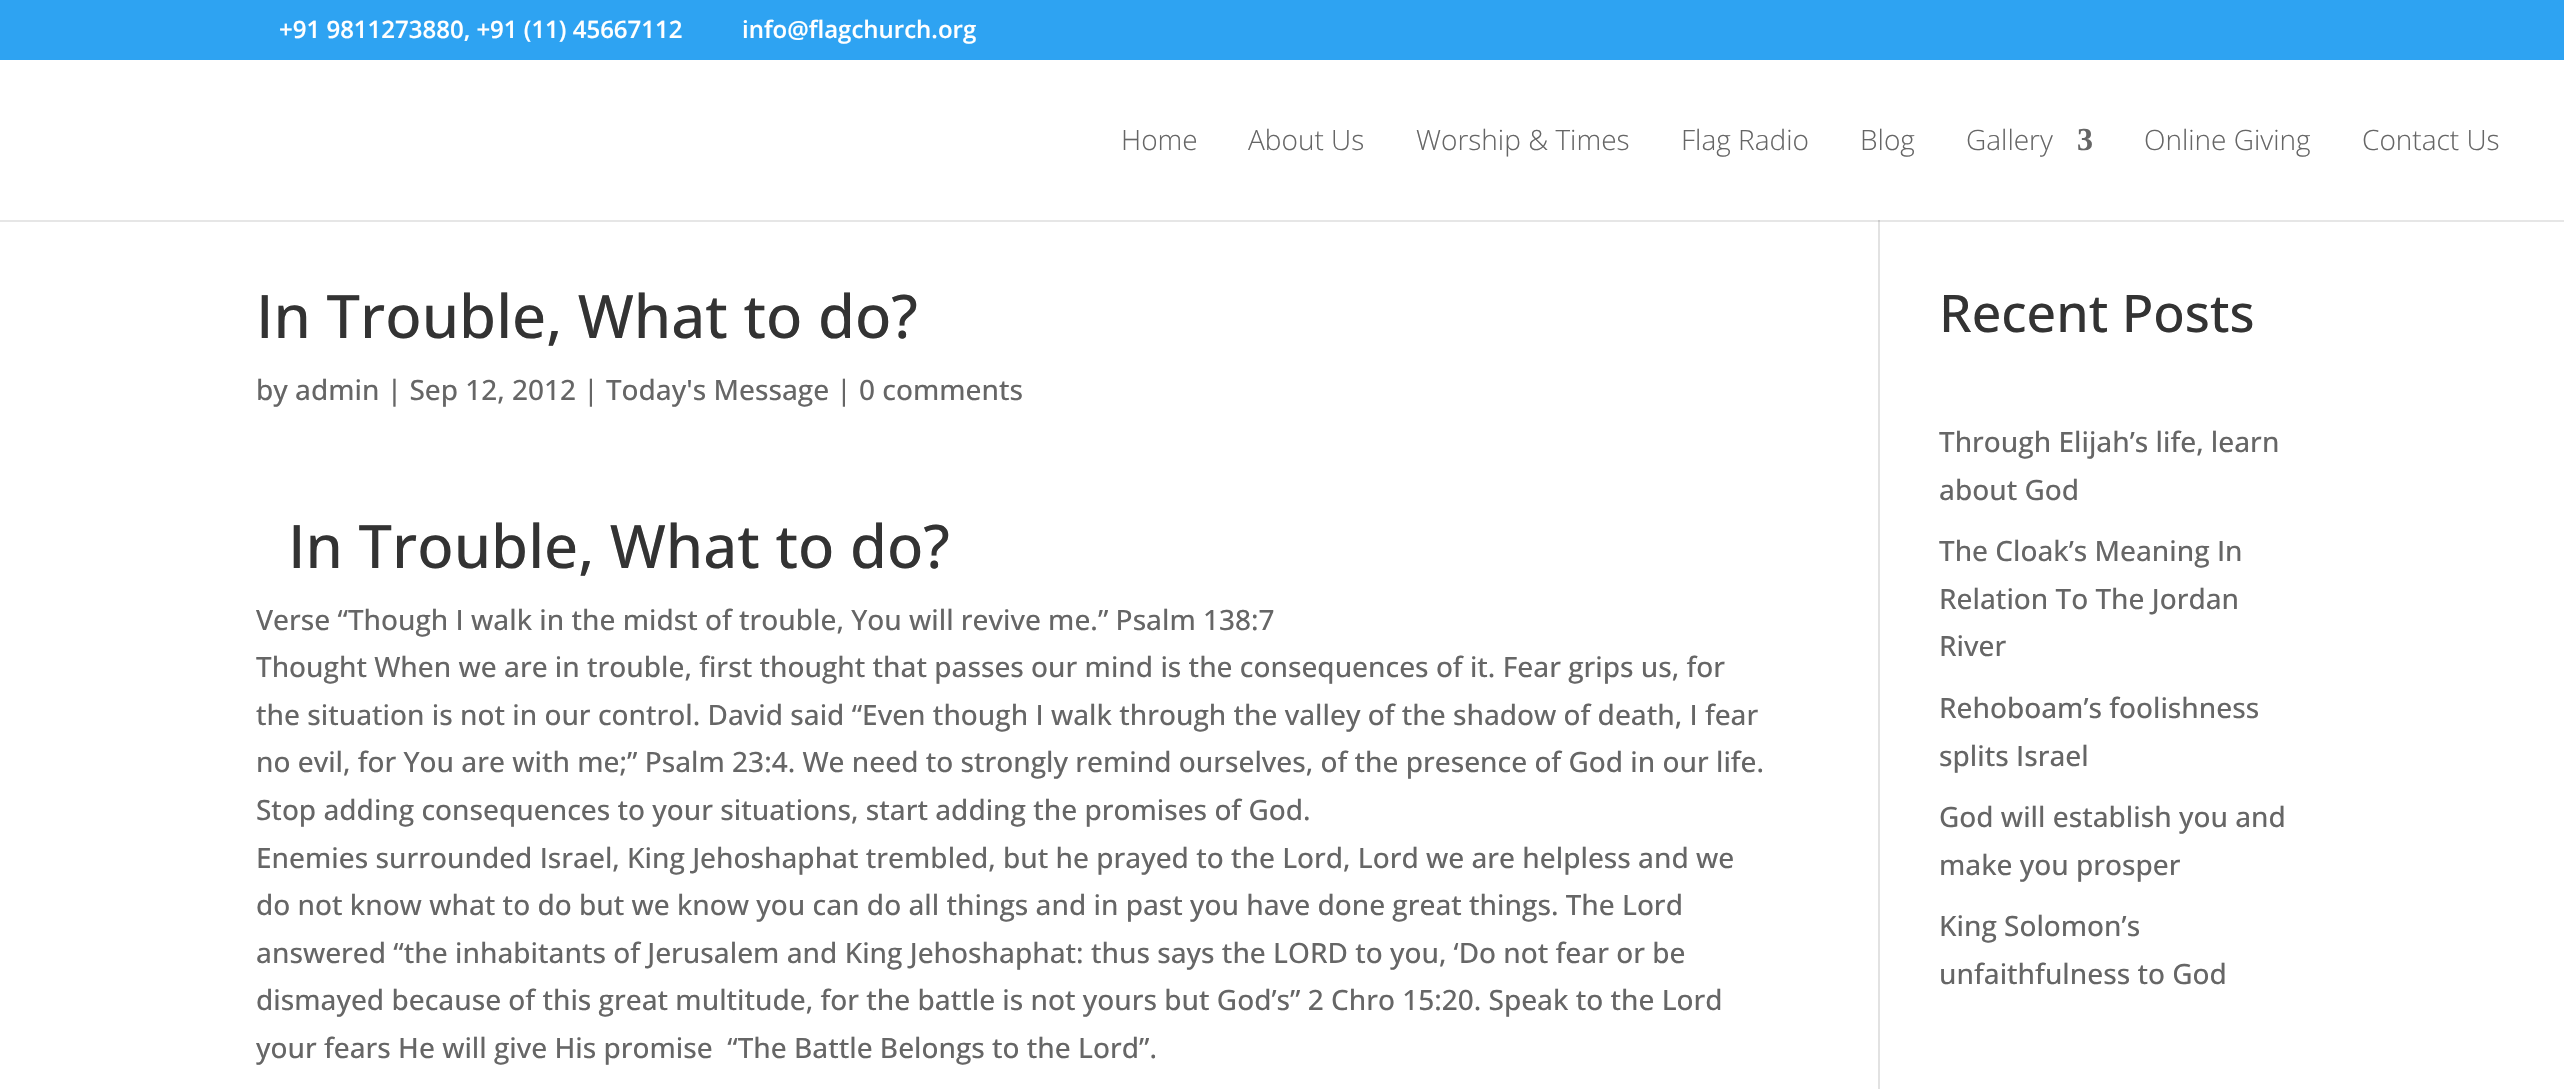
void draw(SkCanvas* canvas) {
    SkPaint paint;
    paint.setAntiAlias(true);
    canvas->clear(0xFFFFFFFF);
    paint.setColor(0xFFE6E6E6);
    canvas->drawRect(SkRect::MakeXYWH(0, 220, 2564, 2), paint);
    paint.setColor(0xFF2EA3F2);
    canvas->drawRect(SkRect::MakeXYWH(0, 0, 2564, 60), paint);
    SkFont font1(fontMgr->matchFamilyStyle("Open Sans", SkFontStyle(600, SkFontStyle::kNormal_Width, SkFontStyle::kUpright_Slant)), 24);
    font1.setSubpixel(true);
    paint.setColor(0xFFFFFFFF);
    canvas->drawString("+91 9811273880, +91 (11) 45667112", 279, 38, font1, paint);
    canvas->drawString("info@flagchurch.org", 742, 38, font1, paint);
    SkFont font2(fontMgr->matchFamilyStyle("Open Sans", SkFontStyle(300, SkFontStyle::kNormal_Width, SkFontStyle::kUpright_Slant)), 28);
    font2.setSubpixel(true);
    paint.setColor(0xFF666666);
    canvas->drawString("Home", 1121, 150, font2, paint);
    canvas->drawString("About Us", 1248, 150, font2, paint);
    canvas->drawString("Worship & Times", 1416, 150, font2, paint);
    canvas->drawString("Flag Radio", 1681, 150, font2, paint);
    canvas->drawString("Blog", 1860, 150, font2, paint);
    canvas->drawString("Gallery", 1966, 150, font2, paint);
    SkFont font3(fontMgr->matchFamilyStyle("Liberation Serif", SkFontStyle::Bold()), 32);
    font3.setSubpixel(true);
    canvas->drawString("3", 2077, 150, font3, paint);
    canvas->drawString("Online Giving", 2144, 150, font2, paint);
    canvas->drawString("Contact Us", 2362, 150, font2, paint);
    paint.setColor(0xFFE2E2E2);
    canvas->drawRect(SkRect::MakeXYWH(1878, 222, 2, 867), paint);
    paint.setColor(0xFFCBCBCB);
    canvas->drawRect(SkRect::MakeXYWH(1878, 220, 2, 2), paint);
    SkFont font4(fontMgr->matchFamilyStyle("Open Sans", SkFontStyle(500, SkFontStyle::kNormal_Width, SkFontStyle::kUpright_Slant)), 60);
    font4.setSubpixel(true);
    paint.setColor(0xFF333333);
    canvas->drawString("In Trouble, What to do?", 256, 338, font4, paint);
    SkFont font5(fontMgr->matchFamilyStyle("Open Sans", SkFontStyle(500, SkFontStyle::kNormal_Width, SkFontStyle::kUpright_Slant)), 28);
    font5.setSubpixel(true);
    paint.setColor(0xFF666666);
    canvas->drawString("by admin | Sep 12, 2012 | Today's Message | 0 comments", 256, 400, font5, paint);
    paint.setColor(0xFF333333);
    canvas->drawString("In Trouble, What to do?", 288, 568, font4, paint);
    paint.setColor(0xFF666666);
    canvas->drawString("Verse “Though I walk in the midst of trouble, You will revive me.” Psalm 138:7", 256, 630, font5, paint);
    canvas->drawString("Thought When we are in trouble, first thought that passes our mind is the consequences of it. Fear grips us, for", 256, 677, font5, paint);
    canvas->drawString("the situation is not in our control. David said “Even though I walk through the valley of the shadow of death, I fear", 256, 725, font5, paint);
    canvas->drawString("no evil, for You are with me;” Psalm 23:4. We need to strongly remind ourselves, of the presence of God in our life.", 256, 772, font5, paint);
    canvas->drawString("Stop adding consequences to your situations, start adding the promises of God.", 256, 820, font5, paint);
    canvas->drawString("Enemies surrounded Israel, King Jehoshaphat trembled, but he prayed to the Lord, Lord we are helpless and we", 256, 868, font5, paint);
    canvas->drawString("do not know what to do but we know you can do all things and in past you have done great things. The Lord", 256, 915, font5, paint);
    canvas->drawString("answered “the inhabitants of Jerusalem and King Jehoshaphat: thus says the LORD to you, ‘Do not fear or be", 256, 963, font5, paint);
    canvas->drawString("dismayed because of this great multitude, for the battle is not yours but God’s” 2 Chro 15:20. Speak to the Lord", 256, 1010, font5, paint);
    canvas->drawString("your fears He will give His promise  “The Battle Belongs to the Lord”.", 256, 1058, font5, paint);
    SkFont font6(fontMgr->matchFamilyStyle("Open Sans", SkFontStyle(500, SkFontStyle::kNormal_Width, SkFontStyle::kUpright_Slant)), 52);
    font6.setSubpixel(true);
    paint.setColor(0xFF333333);
    canvas->drawString("Recent Posts", 1939, 332, font6, paint);
    paint.setColor(0xFF666666);
    canvas->drawString("Through Elijah’s life, learn", 1939, 452, font5, paint);
    canvas->drawString("about God", 1939, 500, font5, paint);
    canvas->drawString("The Cloak’s Meaning In", 1939, 561, font5, paint);
    canvas->drawString("Relation To The Jordan", 1939, 609, font5, paint);
    canvas->drawString("River", 1939, 656, font5, paint);
    canvas->drawString("Rehoboam’s foolishness", 1939, 718, font5, paint);
    canvas->drawString("splits Israel", 1939, 766, font5, paint);
    canvas->drawString("God will establish you and", 1939, 827, font5, paint);
    canvas->drawString("make you prosper", 1939, 875, font5, paint);
    canvas->drawString("King Solomon’s", 1939, 936, font5, paint);
    canvas->drawString("unfaithfulness to God", 1939, 984, font5, paint);
}
